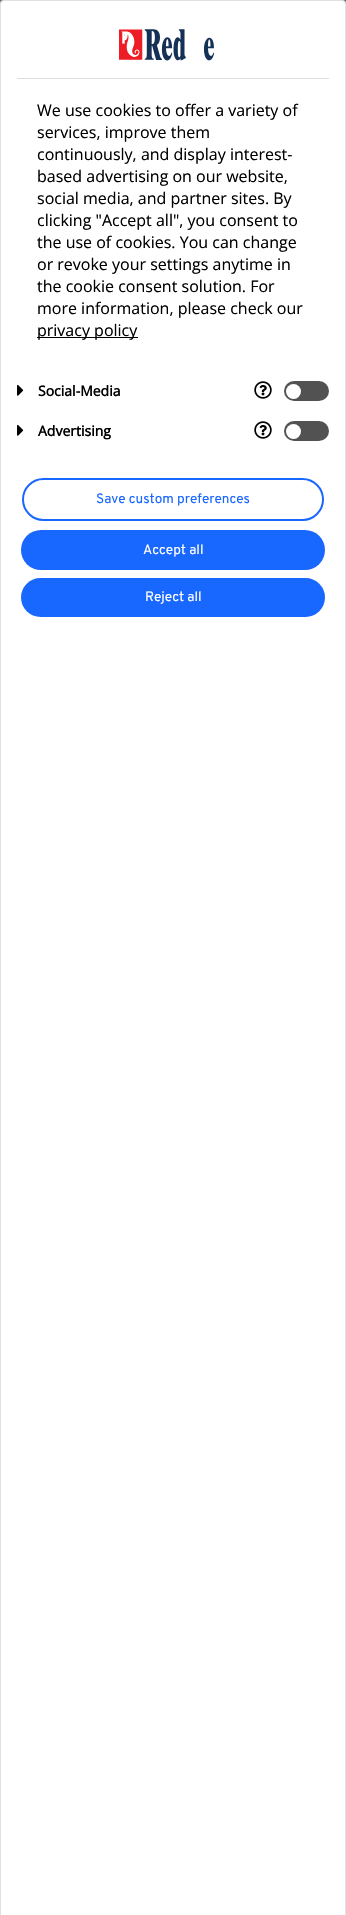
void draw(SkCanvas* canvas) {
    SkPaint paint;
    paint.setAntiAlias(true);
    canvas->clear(0xFF666666);
    paint.setColor(0xFFFFFFFF);
    canvas->drawRoundRect(SkRect::MakeXYWH(0, 0, 346, 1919), 4, 4, paint);
    paint.setStyle(SkPaint::kStroke_Style);
    paint.setStrokeWidth(1);
    paint.setColor(0x1F000000);
    canvas->drawRoundRect(SkRect::MakeXYWH(0.5f, 0.5f, 345, 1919), 3.5f, 3.5f, paint);
    paint.setStyle(SkPaint::kFill_Style);
    paint.setColor(0xFFDFDFDF);
    canvas->drawRect(SkRect::MakeXYWH(17, 78, 312, 1), paint);
    canvas->drawImageRect(SkImages::DeferredFromEncodedData(SkData::MakeFromFileName("img1.png")), SkRect::MakeXYWH(119, 29, 96, 32), SkSamplingOptions());
    SkFont font1(fontMgr->matchFamilyStyle("Open Sans", SkFontStyle::Normal()), 16);
    font1.setSubpixel(true);
    paint.setColor(0xFF000000);
    canvas->drawString("We use cookies to offer a variety of", 37, 116, font1, paint);
    canvas->drawString("services, improve them", 37, 138, font1, paint);
    canvas->drawString("continuously, and display interest-", 37, 160, font1, paint);
    canvas->drawString("based advertising on our website,", 37, 182, font1, paint);
    canvas->drawString("social media, and partner sites. By", 37, 204, font1, paint);
    canvas->drawString("clicking \"Accept all\", you consent to", 37, 226, font1, paint);
    canvas->drawString("the use of cookies. You can change", 37, 248, font1, paint);
    canvas->drawString("or revoke your settings anytime in", 37, 270, font1, paint);
    canvas->drawString("the cookie consent solution. For", 37, 292, font1, paint);
    canvas->drawString("more information, please check our", 37, 314, font1, paint);
    canvas->drawRect(SkRect::MakeXYWH(37, 337, 101, 1), paint);
    canvas->drawString("privacy policy", 37, 336, font1, paint);
    canvas->drawImageRect(SkImages::DeferredFromEncodedData(SkData::MakeFromFileName("img2.png")), SkRect::MakeXYWH(17, 384, 7, 12), SkSamplingOptions());
    SkFont font2(fontMgr->matchFamilyStyle("Open Sans", SkFontStyle::Bold()), 14);
    font2.setSubpixel(true);
    canvas->drawString("Social-Media", 38, 396, font2, paint);
    canvas->drawImageRect(SkImages::DeferredFromEncodedData(SkData::MakeFromFileName("img3.png")), SkRect::MakeXYWH(254, 381, 18, 18), SkSamplingOptions());
    paint.setColor(0xFF525252);
    canvas->drawRoundRect(SkRect::MakeXYWH(284, 381, 45, 20), 10, 10, paint);
    paint.setColor(0xFFFFFFFF);
    canvas->drawCircle(293.5f, 391.5f, 7.5f, paint);
    canvas->drawImageRect(SkImages::DeferredFromEncodedData(SkData::MakeFromFileName("img2.png")), SkRect::MakeXYWH(17, 424, 7, 12), SkSamplingOptions());
    paint.setColor(0xFF000000);
    canvas->drawString("Advertising", 38, 436, font2, paint);
    canvas->drawImageRect(SkImages::DeferredFromEncodedData(SkData::MakeFromFileName("img3.png")), SkRect::MakeXYWH(254, 421, 18, 18), SkSamplingOptions());
    paint.setColor(0xFF525252);
    canvas->drawRoundRect(SkRect::MakeXYWH(284, 421, 45, 20), 10, 10, paint);
    paint.setColor(0xFFFFFFFF);
    canvas->drawCircle(293.5f, 431.5f, 7.5f, paint);
    paint.setStyle(SkPaint::kStroke_Style);
    paint.setStrokeWidth(2);
    paint.setColor(0xFF1867FF);
    canvas->drawRoundRect(SkRect::MakeXYWH(23, 479, 300, 41), 20.5f, 20.5f, paint);
    SkFont font3(fontMgr->matchFamilyStyle("Overpass", SkFontStyle::Normal()), 13.6f);
    font3.setSubpixel(true);
    paint.setStyle(SkPaint::kFill_Style);
    canvas->drawString("Save custom preferences", 96, 503, font3, paint);
    canvas->drawRoundRect(SkRect::MakeXYWH(21, 530, 304, 40), 20, 20, paint);
    paint.setColor(0xFFFFFFFF);
    canvas->drawString("Accept all", 143, 554, font3, paint);
    paint.setColor(0xFF1867FF);
    canvas->drawRoundRect(SkRect::MakeXYWH(21, 578, 304, 39), 19.5f, 19.5f, paint);
    paint.setColor(0xFFFFFFFF);
    canvas->drawString("Reject all", 145, 601, font3, paint);
}
